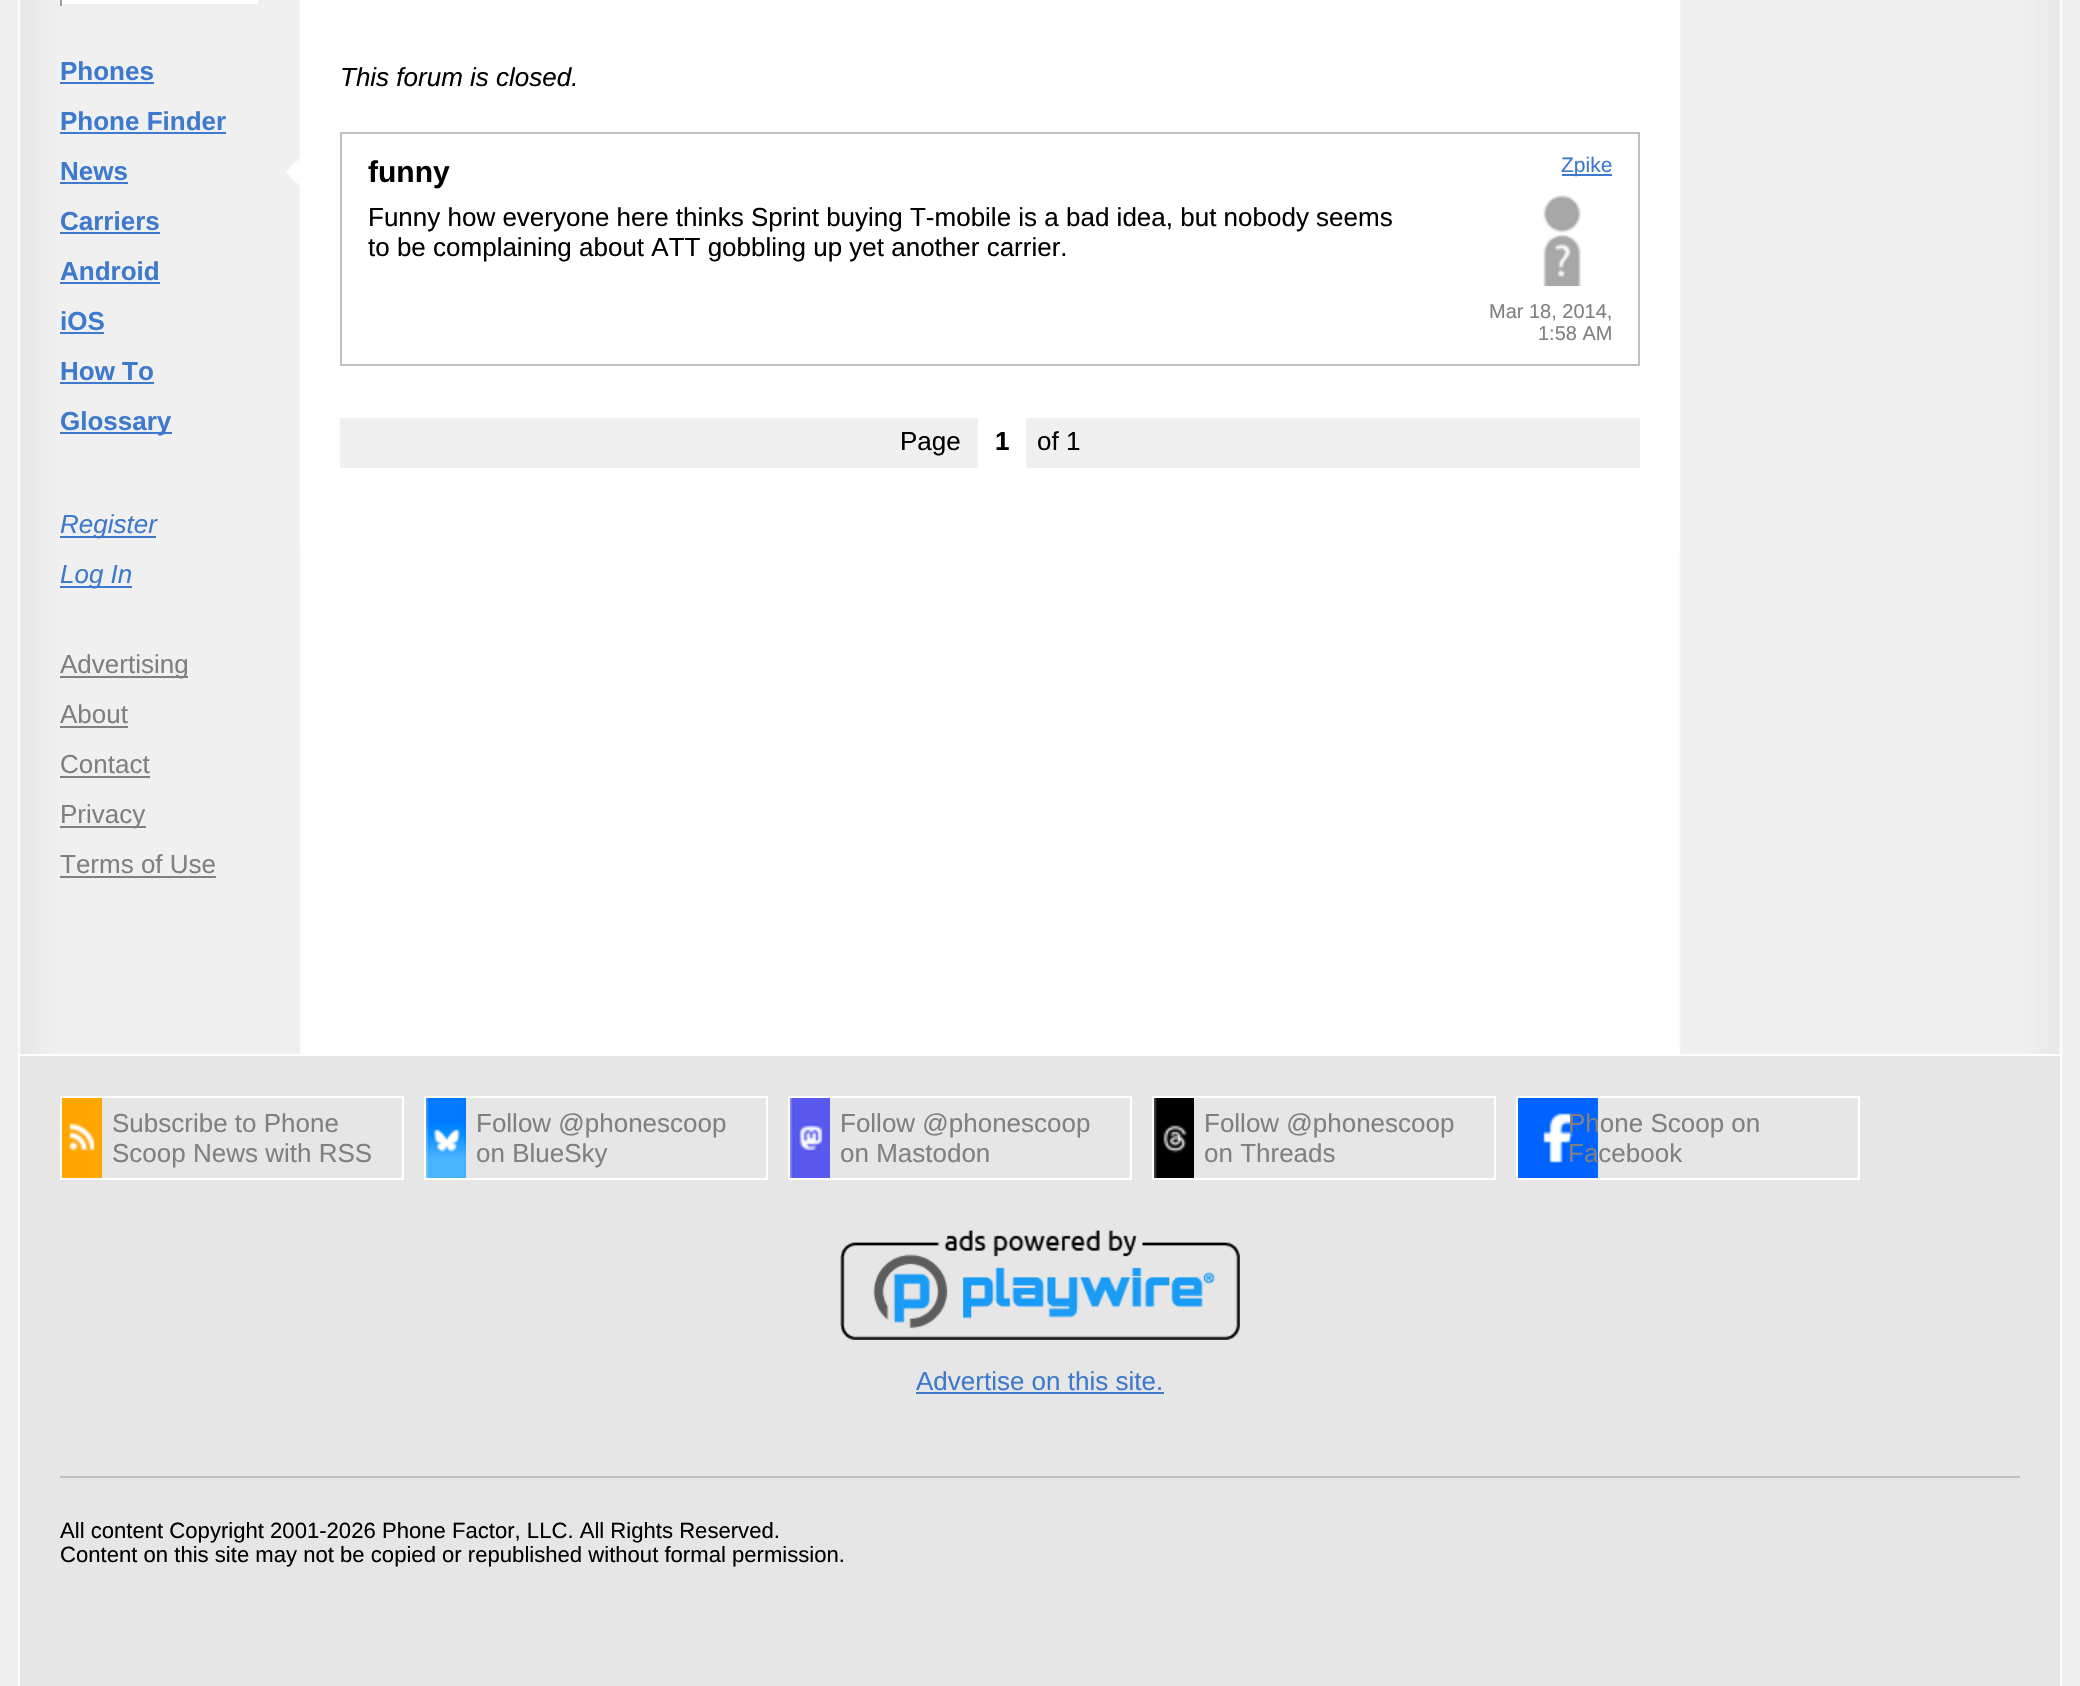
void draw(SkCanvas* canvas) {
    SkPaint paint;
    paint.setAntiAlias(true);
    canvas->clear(0xFFF0F0F0);
    canvas->drawImageRect(SkImages::DeferredFromEncodedData(SkData::MakeFromFileName("img1.png")), SkRect::MakeXYWH(18, 0, 2044, 1686), SkSamplingOptions());
    paint.setColor(0xFFFFFFFF);
    canvas->drawRect(SkRect::MakeXYWH(60, 0, 200, 4), paint);
    paint.setColor(0xFFF0F0F0);
    canvas->drawRect(SkRect::MakeXYWH(258, 0, 2, 6), paint);
    paint.setColor(0xFFA0A0A0);
    canvas->drawRect(SkRect::MakeXYWH(60, 0, 2, 6), paint);
    SkFont font1(fontMgr->matchFamilyStyle("Arimo", SkFontStyle::Bold()), 26);
    font1.setSubpixel(true);
    paint.setColor(0xFF3D79CC);
    canvas->drawString("Phones", 60, 80, font1, paint);
    canvas->drawRect(SkRect::MakeXYWH(60, 82, 94, 2), paint);
    canvas->drawString("Phone Finder", 60, 130, font1, paint);
    canvas->drawRect(SkRect::MakeXYWH(60, 132, 166, 2), paint);
    canvas->drawImageRect(SkImages::DeferredFromEncodedData(SkData::MakeFromFileName("img2.png")), SkRect::MakeXYWH(286, 158, 14, 28), SkSamplingOptions());
    canvas->drawString("News", 60, 180, font1, paint);
    canvas->drawRect(SkRect::MakeXYWH(60, 182, 68, 2), paint);
    canvas->drawString("Carriers", 60, 230, font1, paint);
    canvas->drawRect(SkRect::MakeXYWH(60, 232, 100, 2), paint);
    canvas->drawString("Android", 60, 280, font1, paint);
    canvas->drawRect(SkRect::MakeXYWH(60, 282, 100, 2), paint);
    canvas->drawString("iOS", 60, 330, font1, paint);
    canvas->drawRect(SkRect::MakeXYWH(60, 332, 44, 2), paint);
    canvas->drawString("How To", 60, 380, font1, paint);
    canvas->drawRect(SkRect::MakeXYWH(60, 382, 94, 2), paint);
    canvas->drawRect(SkRect::MakeXYWH(60, 432, 112, 2), paint);
    canvas->drawString("Glossary", 60, 430, font1, paint);
    canvas->drawRect(SkRect::MakeXYWH(60, 536, 96, 2), paint);
    SkFont font2(fontMgr->matchFamilyStyle("Arimo", SkFontStyle::Italic()), 26);
    font2.setSubpixel(true);
    canvas->drawString("Register", 60, 533, font2, paint);
    canvas->drawRect(SkRect::MakeXYWH(60, 586, 72, 2), paint);
    canvas->drawString("Log In", 60, 583, font2, paint);
    paint.setColor(0xFF808080);
    canvas->drawRect(SkRect::MakeXYWH(60, 676, 128, 2), paint);
    SkFont font3(fontMgr->matchFamilyStyle("Arimo", SkFontStyle::Normal()), 26);
    font3.setSubpixel(true);
    canvas->drawString("Advertising", 60, 673, font3, paint);
    canvas->drawString("About", 60, 723, font3, paint);
    canvas->drawRect(SkRect::MakeXYWH(60, 726, 68, 2), paint);
    canvas->drawString("Contact", 60, 773, font3, paint);
    canvas->drawRect(SkRect::MakeXYWH(60, 776, 90, 2), paint);
    canvas->drawRect(SkRect::MakeXYWH(60, 826, 86, 2), paint);
    canvas->drawString("Privacy", 60, 823, font3, paint);
    canvas->drawString("Terms of Use", 60, 873, font3, paint);
    canvas->drawRect(SkRect::MakeXYWH(60, 876, 156, 2), paint);
    paint.setColor(0xFFFFFFFF);
    canvas->drawRect(SkRect::MakeXYWH(300, 0, 1380, 548), paint);
    paint.setColor(0xFF000000);
    canvas->drawString("This forum is closed.", 340, 86, font2, paint);
    paint.setStyle(SkPaint::kStroke_Style);
    paint.setStrokeWidth(2);
    paint.setColor(0xFFC0C0C0);
    canvas->drawRect(SkRect::MakeXYWH(341, 133, 1298, 232), paint);
    SkFont font4(fontMgr->matchFamilyStyle("Arimo", SkFontStyle::Bold()), 30);
    font4.setSubpixel(true);
    paint.setStyle(SkPaint::kFill_Style);
    paint.setColor(0xFF000000);
    canvas->drawString("funny", 368, 182, font4, paint);
    paint.setColor(0xFF3D79CC);
    canvas->drawRect(SkRect::MakeXYWH(1562, 174, 50, 2), paint);
    SkFont font5(fontMgr->matchFamilyStyle("Arimo", SkFontStyle::Normal()), 21);
    font5.setSubpixel(true);
    canvas->drawString("Zpike", 1561, 172, font5, paint);
    canvas->drawImageRect(SkImages::DeferredFromEncodedData(SkData::MakeFromFileName("img3.png")), SkRect::MakeXYWH(1543, 195, 38, 91), SkSamplingOptions());
    SkFont font6(fontMgr->matchFamilyStyle("Arimo", SkFontStyle::Normal()), 20);
    font6.setSubpixel(true);
    paint.setColor(0xFF808080);
    canvas->drawString("Mar 18, 2014,", 1489, 318, font6, paint);
    canvas->drawString("1:58 AM", 1538, 340, font6, paint);
    paint.setColor(0xFF000000);
    canvas->drawString("Funny how everyone here thinks Sprint buying T-mobile is a bad idea, but nobody seems", 368, 226, font3, paint);
    canvas->drawString("to be complaining about ATT gobbling up yet another carrier.", 368, 256, font3, paint);
    paint.setColor(0xFFF0F0F0);
    canvas->drawRect(SkRect::MakeXYWH(340, 418, 1300, 50), paint);
    paint.setColor(0xFF000000);
    canvas->drawString("Page", 900, 450, font3, paint);
    paint.setColor(0xFFFFFFFF);
    canvas->drawRect(SkRect::MakeXYWH(978, 418, 48, 50), paint);
    paint.setColor(0xFF000000);
    canvas->drawString("1", 995, 450, font1, paint);
    canvas->drawString("of 1", 1037, 450, font3, paint);
    paint.setColor(0xFFE6E6E6);
    canvas->drawRect(SkRect::MakeXYWH(20, 1056, 2040, 630), paint);
    paint.setColor(0xFFFFFFFF);
    canvas->drawRect(SkRect::MakeXYWH(20, 1054, 2040, 2), paint);
    canvas->drawImageRect(SkImages::DeferredFromEncodedData(SkData::MakeFromFileName("img4.png")), SkRect::MakeXYWH(62, 1098, 40, 80), SkSamplingOptions());
    paint.setStyle(SkPaint::kStroke_Style);
    canvas->drawRect(SkRect::MakeXYWH(61, 1097, 342, 82), paint);
    paint.setStyle(SkPaint::kFill_Style);
    paint.setColor(0xFF808080);
    canvas->drawString("Subscribe to Phone", 112, 1132, font3, paint);
    canvas->drawString("Scoop News with RSS", 112, 1162, font3, paint);
    canvas->drawImageRect(SkImages::DeferredFromEncodedData(SkData::MakeFromFileName("img5.png")), SkRect::MakeXYWH(426, 1098, 40, 80), SkSamplingOptions());
    paint.setStyle(SkPaint::kStroke_Style);
    paint.setColor(0xFFFFFFFF);
    canvas->drawRect(SkRect::MakeXYWH(425, 1097, 342, 82), paint);
    paint.setStyle(SkPaint::kFill_Style);
    paint.setColor(0xFF808080);
    canvas->drawString("Follow @phonescoop", 476, 1132, font3, paint);
    canvas->drawString("on BlueSky", 476, 1162, font3, paint);
    canvas->drawImageRect(SkImages::DeferredFromEncodedData(SkData::MakeFromFileName("img6.png")), SkRect::MakeXYWH(790, 1098, 40, 80), SkSamplingOptions());
    paint.setStyle(SkPaint::kStroke_Style);
    paint.setColor(0xFFFFFFFF);
    canvas->drawRect(SkRect::MakeXYWH(789, 1097, 342, 82), paint);
    paint.setStyle(SkPaint::kFill_Style);
    paint.setColor(0xFF808080);
    canvas->drawString("Follow @phonescoop", 840, 1132, font3, paint);
    canvas->drawString("on Mastodon", 840, 1162, font3, paint);
    canvas->drawImageRect(SkImages::DeferredFromEncodedData(SkData::MakeFromFileName("img7.png")), SkRect::MakeXYWH(1154, 1098, 40, 80), SkSamplingOptions());
    paint.setStyle(SkPaint::kStroke_Style);
    paint.setColor(0xFFFFFFFF);
    canvas->drawRect(SkRect::MakeXYWH(1153, 1097, 342, 82), paint);
    paint.setStyle(SkPaint::kFill_Style);
    paint.setColor(0xFF808080);
    canvas->drawString("Follow @phonescoop", 1204, 1132, font3, paint);
    canvas->drawString("on Threads", 1204, 1162, font3, paint);
    canvas->drawImageRect(SkImages::DeferredFromEncodedData(SkData::MakeFromFileName("img8.png")), SkRect::MakeXYWH(1518, 1098, 80, 80), SkSamplingOptions());
    paint.setStyle(SkPaint::kStroke_Style);
    paint.setColor(0xFFFFFFFF);
    canvas->drawRect(SkRect::MakeXYWH(1517, 1097, 342, 82), paint);
    paint.setStyle(SkPaint::kFill_Style);
    paint.setColor(0xFF808080);
    canvas->drawString("Phone Scoop on", 1568, 1132, font3, paint);
    canvas->drawString("Facebook", 1568, 1162, font3, paint);
    canvas->drawImageRect(SkImages::DeferredFromEncodedData(SkData::MakeFromFileName("img9.png")), SkRect::MakeXYWH(840, 1230, 400, 110), SkSamplingOptions());
    paint.setColor(0xFF3D79CC);
    canvas->drawString("Advertise on this site.", 916, 1390, font3, paint);
    canvas->drawRect(SkRect::MakeXYWH(916, 1392, 248, 2), paint);
    paint.setColor(0xFFC0C0C0);
    canvas->drawRect(SkRect::MakeXYWH(60, 1476, 1960, 2), paint);
    SkFont font7(fontMgr->matchFamilyStyle("Arimo", SkFontStyle::Normal()), 22.1f);
    font7.setSubpixel(true);
    paint.setColor(0xFF000000);
    canvas->drawString("All content Copyright 2001-2026 Phone Factor, LLC. All Rights Reserved.", 60, 1538, font7, paint);
    canvas->drawString("Content on this site may not be copied or republished without formal permission.", 60, 1562, font7, paint);
}
